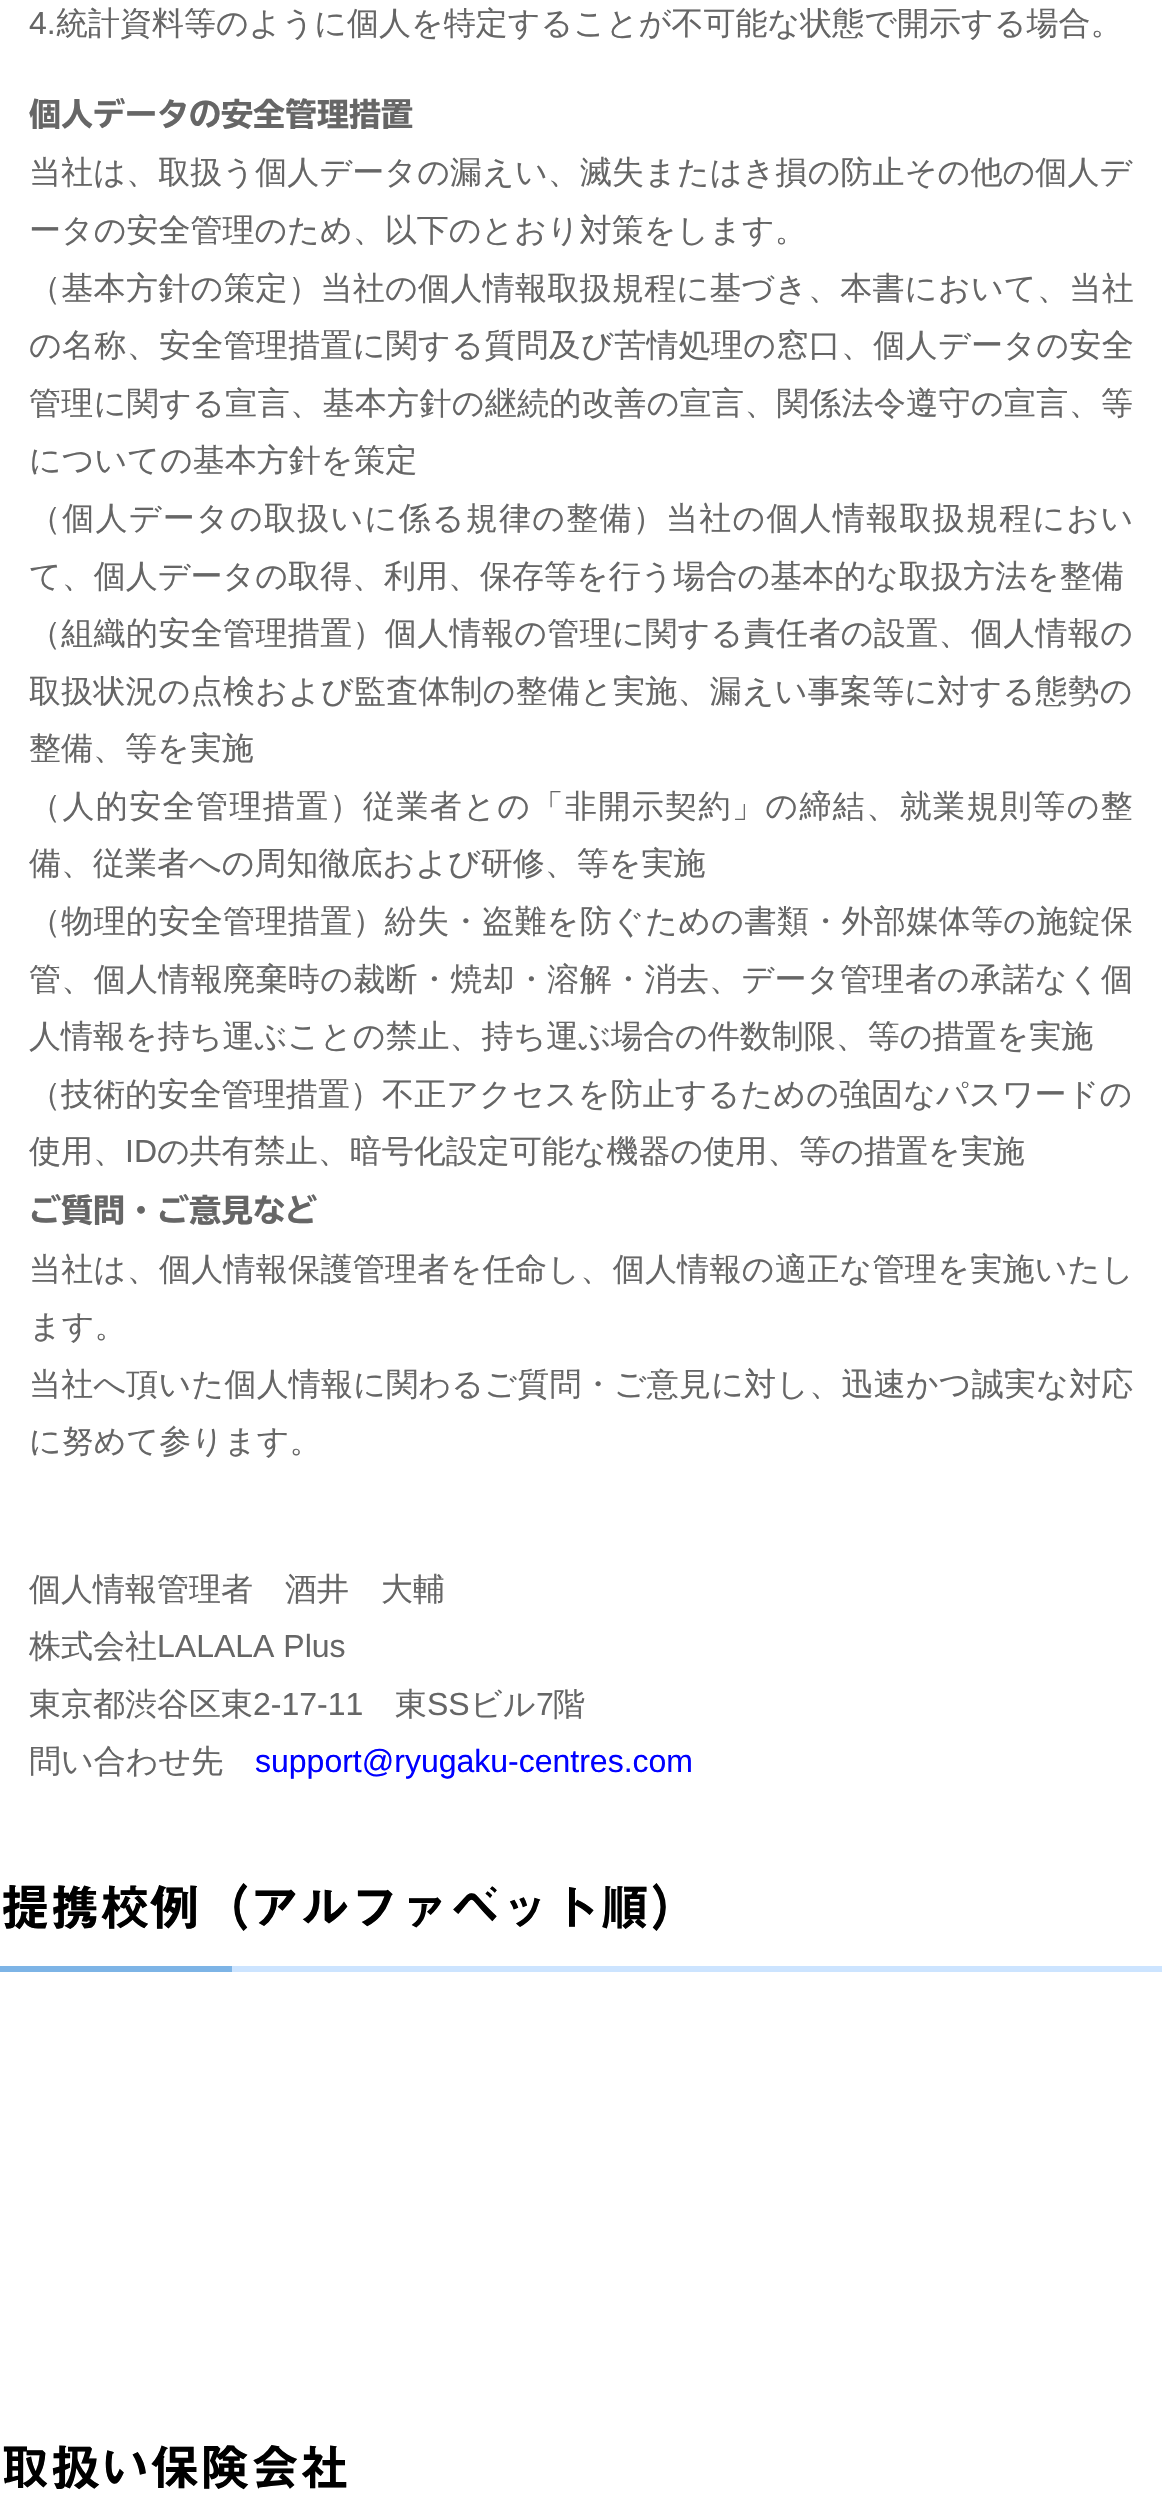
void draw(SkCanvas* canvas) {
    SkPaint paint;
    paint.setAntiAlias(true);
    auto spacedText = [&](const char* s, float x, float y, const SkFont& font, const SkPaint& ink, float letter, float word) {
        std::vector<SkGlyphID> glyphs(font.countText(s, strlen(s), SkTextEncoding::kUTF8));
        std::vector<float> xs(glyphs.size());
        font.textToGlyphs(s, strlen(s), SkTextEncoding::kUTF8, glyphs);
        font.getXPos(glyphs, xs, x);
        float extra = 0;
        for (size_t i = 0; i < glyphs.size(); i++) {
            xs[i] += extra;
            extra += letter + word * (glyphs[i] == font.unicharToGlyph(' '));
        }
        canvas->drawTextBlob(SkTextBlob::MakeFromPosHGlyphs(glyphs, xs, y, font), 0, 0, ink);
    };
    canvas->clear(0xFFFFFFFF);
    SkFont font1(fontMgr->matchFamilyStyle("Liberation Sans", SkFontStyle::Normal()), 32);
    font1.setSubpixel(true);
    paint.setColor(0xFF666666);
    canvas->drawString("4.", 29, 34, font1, paint);
    SkFont font2(fontMgr->matchFamilyStyle("WenQuanYi Zen Hei", SkFontStyle(500, SkFontStyle::kNormal_Width, SkFontStyle::kUpright_Slant)), 32);
    font2.setSubpixel(true);
    canvas->drawString("統計資料等のように個人を特定することが不可能な状態で開示する場合。", 56, 34, font2, paint);
    SkFont font3(fontMgr->matchFamilyStyle("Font", SkFontStyle(800, SkFontStyle::kNormal_Width, SkFontStyle::kUpright_Slant)), 32);
    font3.setSubpixel(true);
    canvas->drawString("個人データの安全管理措置", 29, 126, font3, paint);
    spacedText("当社は、取扱う個人データの漏えい、滅失またはき損の防止その他の個人デ", 29, 183, font2, paint, 0.1f, 0);
    canvas->drawString("ータの安全管理のため、以下のとおり対策をします。", 29, 241, font2, paint);
    spacedText("（基本方針の策定）当社の個人情報取扱規程に基づき、本書において、当社", 29, 299, font2, paint, 0.3f, 0);
    spacedText("の名称、安全管理措置に関する質問及び苦情処理の窓口、個人データの安全", 29, 356, font2, paint, 0.3f, 0);
    spacedText("管理に関する宣言、基本方針の継続的改善の宣言、関係法令遵守の宣言、等", 29, 414, font2, paint, 0.35f, 0);
    canvas->drawString("についての基本方針を策定", 29, 471, font2, paint);
    spacedText("（個人データの取扱いに係る規律の整備）当社の個人情報取扱規程におい", 29, 529, font2, paint, 1.25f, 0);
    canvas->drawString("て、個人データの取得、利用、保存等を行う場合の基本的な取扱方法を整備", 29, 587, font2, paint);
    spacedText("（組織的安全管理措置）個人情報の管理に関する責任者の設置、個人情報の", 29, 644, font2, paint, 0.35f, 0);
    spacedText("取扱状況の点検および監査体制の整備と実施、漏えい事案等に対する態勢の", 29, 702, font2, paint, 0.2f, 0);
    canvas->drawString("整備、等を実施", 29, 759, font2, paint);
    spacedText("（人的安全管理措置）従業者との「非開示契約」の締結、就業規則等の整", 29, 817, font2, paint, 1.4f, 0);
    canvas->drawString("備、従業者への周知徹底および研修、等を実施", 29, 874, font2, paint);
    spacedText("（物理的安全管理措置）紛失・盗難を防ぐための書類・外部媒体等の施錠保", 29, 932, font2, paint, 0.35f, 0);
    spacedText("管、個人情報廃棄時の裁断・焼却・溶解・消去、データ管理者の承諾なく個", 29, 990, font2, paint, 0.35f, 0);
    canvas->drawString("人情報を持ち運ぶことの禁止、持ち運ぶ場合の件数制限、等の措置を実施", 29, 1047, font2, paint);
    spacedText("（技術的安全管理措置）不正アクセスを防止するための強固なパスワードの", 29, 1105, font2, paint, 0.1f, 0);
    canvas->drawString("使用、", 29, 1162, font2, paint);
    canvas->drawString("ID", 125, 1162, font1, paint);
    canvas->drawString("の共有禁止、暗号化設定可能な機器の使用、等の措置を実施", 157, 1162, font2, paint);
    canvas->drawString("ご質問・ご意見など", 29, 1222, font3, paint);
    spacedText("当社は、個人情報保護管理者を任命し、個人情報の適正な管理を実施いたし", 29, 1280, font2, paint, 0.3f, 0);
    canvas->drawString("ます。", 29, 1337, font2, paint);
    spacedText("当社へ頂いた個人情報に関わるご質問・ご意見に対し、迅速かつ誠実な対応", 29, 1395, font2, paint, 0.2f, 0);
    canvas->drawString("に努めて参ります。", 29, 1452, font2, paint);
    canvas->drawString("個人情報管理者　酒井　大輔", 29, 1600, font2, paint);
    canvas->drawString("株式会社", 29, 1657, font2, paint);
    canvas->drawString("LALALA Plus", 157, 1657, font1, paint);
    canvas->drawString("東京都渋谷区東", 29, 1715, font2, paint);
    canvas->drawString("2-17-11", 253, 1715, font1, paint);
    canvas->drawString("東", 395, 1715, font2, paint);
    canvas->drawString("SS", 427, 1715, font1, paint);
    canvas->drawString("ビル", 470, 1715, font2, paint);
    canvas->drawString("7", 536, 1715, font1, paint);
    canvas->drawString("階", 553, 1715, font2, paint);
    canvas->drawString("問い合わせ先", 29, 1772, font2, paint);
    paint.setColor(0xFF0000FF);
    canvas->drawString("support@ryugaku-centres.com", 255, 1772, font1, paint);
    paint.setColor(0xFFCCE4FF);
    canvas->drawRect(SkRect::MakeXYWH(232, 1966, 930, 6), paint);
    SkFont font4(fontMgr->matchFamilyStyle("Font", SkFontStyle(600, SkFontStyle::kNormal_Width, SkFontStyle::kUpright_Slant)), 50);
    font4.setSubpixel(true);
    paint.setColor(0xFF000000);
    canvas->drawString("提携校例（アルファベット順）", 0, 1926, font4, paint);
    paint.setColor(0xFF7DB4E6);
    canvas->drawRect(SkRect::MakeXYWH(0, 1966, 232, 6), paint);
    paint.setColor(0xFF000000);
    canvas->drawString("取扱い保険会社", 0, 2486, font4, paint);
}
